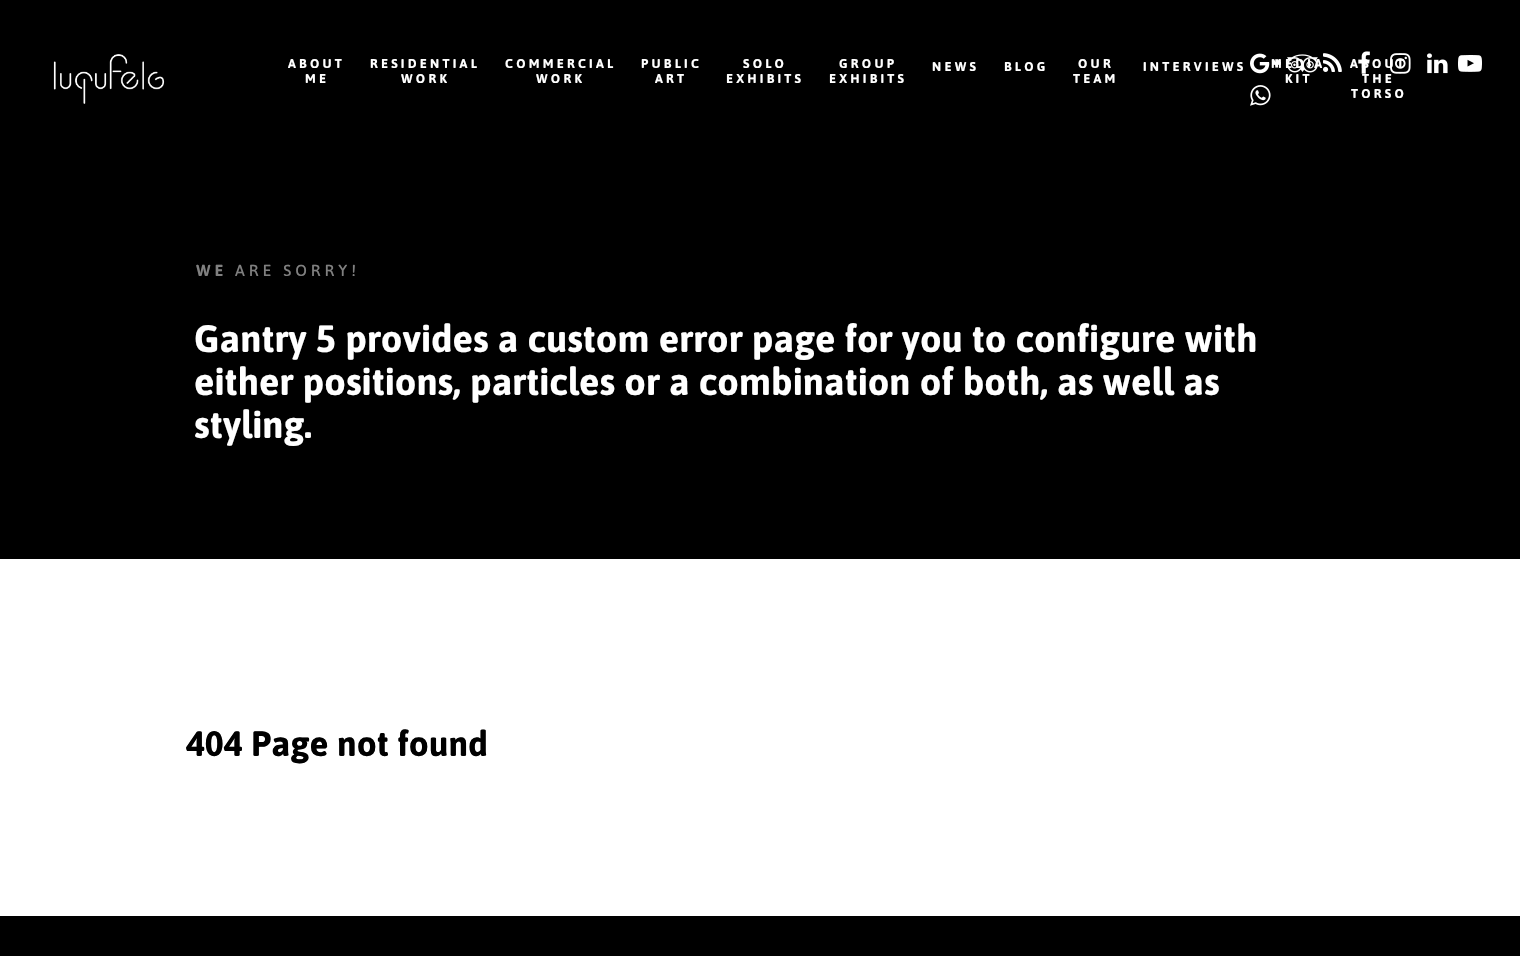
void draw(SkCanvas* canvas) {
    SkPaint paint;
    paint.setAntiAlias(true);
    auto spacedText = [&](const char* s, float x, float y, const SkFont& font, const SkPaint& ink, float letter, float word) {
        std::vector<SkGlyphID> glyphs(font.countText(s, strlen(s), SkTextEncoding::kUTF8));
        std::vector<float> xs(glyphs.size());
        font.textToGlyphs(s, strlen(s), SkTextEncoding::kUTF8, glyphs);
        font.getXPos(glyphs, xs, x);
        float extra = 0;
        for (size_t i = 0; i < glyphs.size(); i++) {
            xs[i] += extra;
            extra += letter + word * (glyphs[i] == font.unicharToGlyph(' '));
        }
        canvas->drawTextBlob(SkTextBlob::MakeFromPosHGlyphs(glyphs, xs, y, font), 0, 0, ink);
    };
    canvas->clear(0xFFFFFFFF);
    paint.setColor(0xFF000000);
    canvas->drawRect(SkRect::MakeXYWH(0, 0, 1520, 559), paint);
    canvas->drawImageRect(SkImages::DeferredFromEncodedData(SkData::MakeFromFileName("img1.png")), SkRect::MakeXYWH(53, 54, 112, 50), SkSamplingOptions());
    canvas->drawImageRect(SkImages::DeferredFromEncodedData(SkData::MakeFromFileName("img2.png")), SkRect::MakeXYWH(1250, 53, 31, 21), SkSamplingOptions());
    canvas->drawImageRect(SkImages::DeferredFromEncodedData(SkData::MakeFromFileName("img3.png")), SkRect::MakeXYWH(1287, 54, 31, 19), SkSamplingOptions());
    canvas->drawImageRect(SkImages::DeferredFromEncodedData(SkData::MakeFromFileName("img4.png")), SkRect::MakeXYWH(1323, 53, 19, 19), SkSamplingOptions());
    canvas->drawImageRect(SkImages::DeferredFromEncodedData(SkData::MakeFromFileName("img5.png")), SkRect::MakeXYWH(1358, 51, 12, 23), SkSamplingOptions());
    canvas->drawImageRect(SkImages::DeferredFromEncodedData(SkData::MakeFromFileName("img6.png")), SkRect::MakeXYWH(1390, 53, 21, 21), SkSamplingOptions());
    canvas->drawImageRect(SkImages::DeferredFromEncodedData(SkData::MakeFromFileName("img7.png")), SkRect::MakeXYWH(1427, 53, 21, 21), SkSamplingOptions());
    canvas->drawImageRect(SkImages::DeferredFromEncodedData(SkData::MakeFromFileName("img8.png")), SkRect::MakeXYWH(1458, 55, 24, 17), SkSamplingOptions());
    canvas->drawImageRect(SkImages::DeferredFromEncodedData(SkData::MakeFromFileName("img9.png")), SkRect::MakeXYWH(1250, 85, 21, 21), SkSamplingOptions());
    SkFont font1(fontMgr->matchFamilyStyle("Asap", SkFontStyle::Bold()), 12.75f);
    font1.setSubpixel(true);
    paint.setColor(0xFFFFFFFF);
    spacedText("ABOUT", 288, 68, font1, paint, 3.25f, 0);
    spacedText("ME", 305, 83, font1, paint, 3.25f, 0);
    spacedText("RESIDENTIAL", 370, 68, font1, paint, 3.25f, 0);
    spacedText("WORK", 401, 83, font1, paint, 3.25f, 0);
    spacedText("COMMERCIAL", 505, 68, font1, paint, 3.25f, 0);
    spacedText("WORK", 536, 83, font1, paint, 3.25f, 0);
    spacedText("PUBLIC", 641, 68, font1, paint, 3.25f, 0);
    spacedText("ART", 655, 83, font1, paint, 3.25f, 0);
    spacedText("SOLO", 743, 68, font1, paint, 3.25f, 0);
    spacedText("EXHIBITS", 726, 83, font1, paint, 3.25f, 0);
    spacedText("GROUP", 839, 68, font1, paint, 3.25f, 0);
    spacedText("EXHIBITS", 829, 83, font1, paint, 3.25f, 0);
    spacedText("NEWS", 932, 71, font1, paint, 3.25f, 0);
    spacedText("BLOG", 1004, 71, font1, paint, 3.25f, 0);
    spacedText("OUR", 1078, 68, font1, paint, 3.25f, 0);
    spacedText("TEAM", 1073, 83, font1, paint, 3.25f, 0);
    spacedText("INTERVIEWS", 1143, 71, font1, paint, 3.25f, 0);
    spacedText("MEDIA", 1271, 68, font1, paint, 3.25f, 0);
    spacedText("KIT", 1285, 83, font1, paint, 3.25f, 0);
    spacedText("ABOUT", 1350, 68, font1, paint, 3.25f, 0);
    spacedText("THE", 1362, 83, font1, paint, 3.25f, 0);
    spacedText("TORSO", 1351, 98, font1, paint, 3.25f, 0);
    SkFont font2(fontMgr->matchFamilyStyle("Asap", SkFontStyle::Bold()), 16);
    font2.setSubpixel(true);
    paint.setColor(0xFF808080);
    spacedText("WE", 196, 276, font2, paint, 4, 0);
    SkFont font3(fontMgr->matchFamilyStyle("Asap Medium", SkFontStyle(500, SkFontStyle::kNormal_Width, SkFontStyle::kUpright_Slant)), 16);
    font3.setSubpixel(true);
    spacedText("ARE SORRY!", 235, 276, font3, paint, 4, 0);
    SkFont font4(fontMgr->matchFamilyStyle("Asap", SkFontStyle::Bold()), 38);
    font4.setSubpixel(true);
    paint.setColor(0xFFFFFFFF);
    canvas->drawString("Gantry 5 provides a custom error page for you to configure with", 194, 352, font4, paint);
    canvas->drawString("either positions, particles or a combination of both, as well as", 194, 395, font4, paint);
    canvas->drawString("styling.", 194, 438, font4, paint);
    SkFont font5(fontMgr->matchFamilyStyle("Asap", SkFontStyle::Bold()), 35.25f);
    font5.setSubpixel(true);
    paint.setColor(0xFF000000);
    canvas->drawString("404 Page not found", 186, 756, font5, paint);
    canvas->drawRect(SkRect::MakeXYWH(0, 916, 1520, 40), paint);
}
